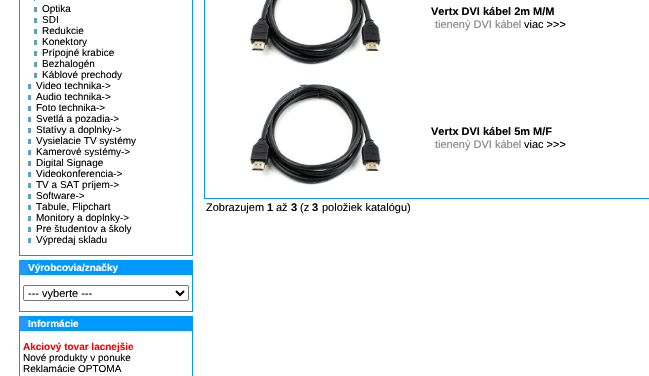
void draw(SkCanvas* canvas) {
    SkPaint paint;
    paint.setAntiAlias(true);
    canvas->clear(0xFFFFFFFF);
    paint.setColor(0xFF0099FF);
    canvas->drawRect(SkRect::MakeXYWH(19, 0, 174, 256), paint);
    paint.setColor(0xFFFFFFFF);
    canvas->drawRect(SkRect::MakeXYWH(20, 0, 172, 255), paint);
    paint.setColor(0xFF5CA0C7);
    canvas->drawRect(SkRect::MakeXYWH(34, 0, 1, 1), paint);
    SkFont font1(fontMgr->matchFamilyStyle("Liberation Sans", SkFontStyle::Normal()), 10);
    font1.setSubpixel(true);
    paint.setColor(0xFF000000);
    canvas->drawString("Optika", 42, 12, font1, paint);
    paint.setColor(0xFF5CA0C7);
    canvas->drawRect(SkRect::MakeXYWH(34, 7, 3, 5), paint);
    paint.setColor(0xFF000000);
    canvas->drawString("SDI", 42, 23, font1, paint);
    paint.setColor(0xFF5CA0C7);
    canvas->drawRect(SkRect::MakeXYWH(34, 18, 3, 5), paint);
    paint.setColor(0xFF000000);
    canvas->drawString("Redukcie", 42, 34, font1, paint);
    paint.setColor(0xFF5CA0C7);
    canvas->drawRect(SkRect::MakeXYWH(34, 29, 3, 5), paint);
    paint.setColor(0xFF000000);
    canvas->drawString("Konektory", 42, 45, font1, paint);
    paint.setColor(0xFF5CA0C7);
    canvas->drawRect(SkRect::MakeXYWH(34, 40, 3, 5), paint);
    paint.setColor(0xFF000000);
    canvas->drawString("Prípojné krabice", 42, 56, font1, paint);
    paint.setColor(0xFF5CA0C7);
    canvas->drawRect(SkRect::MakeXYWH(34, 51, 3, 5), paint);
    paint.setColor(0xFF000000);
    canvas->drawString("Bezhalogén", 42, 67, font1, paint);
    paint.setColor(0xFF5CA0C7);
    canvas->drawRect(SkRect::MakeXYWH(34, 62, 3, 5), paint);
    paint.setColor(0xFF000000);
    canvas->drawString("Káblové prechody", 42, 78, font1, paint);
    paint.setColor(0xFF5CA0C7);
    canvas->drawRect(SkRect::MakeXYWH(34, 73, 3, 5), paint);
    paint.setColor(0xFF000000);
    canvas->drawString("Video technika->", 36, 89, font1, paint);
    paint.setColor(0xFF5CA0C7);
    canvas->drawRect(SkRect::MakeXYWH(28, 84, 3, 5), paint);
    paint.setColor(0xFF000000);
    canvas->drawString("Audio technika->", 36, 100, font1, paint);
    paint.setColor(0xFF5CA0C7);
    canvas->drawRect(SkRect::MakeXYWH(28, 95, 3, 5), paint);
    paint.setColor(0xFF000000);
    canvas->drawString("Foto technika->", 36, 111, font1, paint);
    paint.setColor(0xFF5CA0C7);
    canvas->drawRect(SkRect::MakeXYWH(28, 106, 3, 5), paint);
    paint.setColor(0xFF000000);
    canvas->drawString("Svetlá a pozadia->", 36, 122, font1, paint);
    paint.setColor(0xFF5CA0C7);
    canvas->drawRect(SkRect::MakeXYWH(28, 117, 3, 5), paint);
    paint.setColor(0xFF000000);
    canvas->drawString("Statívy a doplnky->", 36, 133, font1, paint);
    paint.setColor(0xFF5CA0C7);
    canvas->drawRect(SkRect::MakeXYWH(28, 128, 3, 5), paint);
    paint.setColor(0xFF000000);
    canvas->drawString("Vysielacie TV systémy", 36, 144, font1, paint);
    paint.setColor(0xFF5CA0C7);
    canvas->drawRect(SkRect::MakeXYWH(28, 139, 3, 5), paint);
    paint.setColor(0xFF000000);
    canvas->drawString("Kamerové systémy->", 36, 155, font1, paint);
    paint.setColor(0xFF5CA0C7);
    canvas->drawRect(SkRect::MakeXYWH(28, 150, 3, 5), paint);
    paint.setColor(0xFF000000);
    canvas->drawString("Digital Signage", 36, 166, font1, paint);
    paint.setColor(0xFF5CA0C7);
    canvas->drawRect(SkRect::MakeXYWH(28, 161, 3, 5), paint);
    paint.setColor(0xFF000000);
    canvas->drawString("Videokonferencia->", 36, 177, font1, paint);
    paint.setColor(0xFF5CA0C7);
    canvas->drawRect(SkRect::MakeXYWH(28, 172, 3, 5), paint);
    paint.setColor(0xFF000000);
    canvas->drawString("TV a SAT príjem->", 36, 188, font1, paint);
    paint.setColor(0xFF5CA0C7);
    canvas->drawRect(SkRect::MakeXYWH(28, 183, 3, 5), paint);
    paint.setColor(0xFF000000);
    canvas->drawString("Software->", 36, 199, font1, paint);
    paint.setColor(0xFF5CA0C7);
    canvas->drawRect(SkRect::MakeXYWH(28, 194, 3, 5), paint);
    paint.setColor(0xFF000000);
    canvas->drawString("Tabule, Flipchart", 36, 210, font1, paint);
    paint.setColor(0xFF5CA0C7);
    canvas->drawRect(SkRect::MakeXYWH(28, 205, 3, 5), paint);
    paint.setColor(0xFF000000);
    canvas->drawString("Monitory a doplnky->", 36, 221, font1, paint);
    paint.setColor(0xFF5CA0C7);
    canvas->drawRect(SkRect::MakeXYWH(28, 216, 3, 5), paint);
    paint.setColor(0xFF000000);
    canvas->drawString("Pre študentov a školy", 36, 232, font1, paint);
    paint.setColor(0xFF5CA0C7);
    canvas->drawRect(SkRect::MakeXYWH(28, 227, 3, 5), paint);
    paint.setColor(0xFF000000);
    canvas->drawString("Výpredaj skladu", 36, 243, font1, paint);
    paint.setColor(0xFF5CA0C7);
    canvas->drawRect(SkRect::MakeXYWH(28, 238, 3, 5), paint);
    paint.setColor(0xFF0099FF);
    canvas->drawRect(SkRect::MakeXYWH(19, 260, 9, 1), paint);
    canvas->drawImageRect(SkImages::DeferredFromEncodedData(SkData::MakeFromFileName("img1.png")), SkRect::MakeXYWH(19, 261, 9, 13), SkSamplingOptions());
    canvas->drawRect(SkRect::MakeXYWH(28, 260, 165, 14), paint);
    SkFont font2(fontMgr->matchFamilyStyle("Liberation Sans", SkFontStyle::Bold()), 10);
    font2.setSubpixel(true);
    paint.setColor(0xFFFFFFFF);
    canvas->drawString("Výrobcovia/značky", 28, 271, font2, paint);
    paint.setColor(0xFF0099FF);
    canvas->drawRect(SkRect::MakeXYWH(19, 274, 174, 38), paint);
    paint.setColor(0xFFFFFFFF);
    canvas->drawRect(SkRect::MakeXYWH(20, 275, 172, 36), paint);
    paint.setStyle(SkPaint::kStroke_Style);
    paint.setStrokeWidth(1);
    paint.setColor(0xFF767676);
    canvas->drawRoundRect(SkRect::MakeXYWH(23.5f, 285.5f, 165, 15), 1.5f, 1.5f, paint);
    paint.setStrokeWidth(2);
    paint.setColor(0xFF000000);
    canvas->drawPath(SkPathBuilder().moveTo(176, 291).lineTo(180, 295).lineTo(184, 291).detach(), paint);
    SkFont font3(fontMgr->matchFamilyStyle("Liberation Sans", SkFontStyle::Normal()), 11);
    font3.setSubpixel(true);
    paint.setStyle(SkPaint::kFill_Style);
    canvas->drawString("--- vyberte ---", 28, 297, font3, paint);
    paint.setColor(0xFF0099FF);
    canvas->drawRect(SkRect::MakeXYWH(19, 316, 9, 1), paint);
    canvas->drawImageRect(SkImages::DeferredFromEncodedData(SkData::MakeFromFileName("img1.png")), SkRect::MakeXYWH(19, 317, 9, 13), SkSamplingOptions());
    canvas->drawRect(SkRect::MakeXYWH(28, 316, 165, 14), paint);
    paint.setColor(0xFFFFFFFF);
    canvas->drawString("Informácie", 28, 327, font2, paint);
    paint.setColor(0xFF0099FF);
    canvas->drawRect(SkRect::MakeXYWH(19, 330, 174, 46), paint);
    paint.setColor(0xFFFFFFFF);
    canvas->drawRect(SkRect::MakeXYWH(20, 331, 172, 45), paint);
    paint.setColor(0xFFFF0000);
    canvas->drawString("Akciový tovar lacnejšie", 23, 350, font2, paint);
    paint.setColor(0xFF000000);
    canvas->drawString("Nové produkty v ponuke", 23, 361, font1, paint);
    canvas->drawString("Reklamácie OPTOMA", 23, 372, font1, paint);
    paint.setStyle(SkPaint::kStroke_Style);
    paint.setStrokeWidth(1);
    paint.setColor(0xFF0099FF);
    canvas->drawRect(SkRect::MakeXYWH(204.5f, -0.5f, 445, 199), paint);
    canvas->drawImageRect(SkImages::DeferredFromEncodedData(SkData::MakeFromFileName("img2.png")), SkRect::MakeXYWH(248, 0, 133, 65), SkSamplingOptions());
    SkFont font4(fontMgr->matchFamilyStyle("Liberation Sans", SkFontStyle::Bold()), 11);
    font4.setSubpixel(true);
    paint.setStyle(SkPaint::kFill_Style);
    paint.setColor(0xFF000000);
    canvas->drawString("Vertx DVI kábel 2m M/M", 431, 15, font4, paint);
    paint.setColor(0xFF808080);
    canvas->drawString("tienený DVI kábel", 435, 28, font3, paint);
    paint.setColor(0xFF000000);
    canvas->drawString("viac >>>", 524, 28, font3, paint);
    canvas->drawImageRect(SkImages::DeferredFromEncodedData(SkData::MakeFromFileName("img3.png")), SkRect::MakeXYWH(248, 82, 133, 103), SkSamplingOptions());
    canvas->drawString("Vertx DVI kábel 5m M/F", 431, 135, font4, paint);
    paint.setColor(0xFF808080);
    canvas->drawString("tienený DVI kábel", 435, 148, font3, paint);
    paint.setColor(0xFF000000);
    canvas->drawString("viac >>>", 524, 148, font3, paint);
    canvas->drawString("Zobrazujem", 206, 211, font3, paint);
    canvas->drawString("1", 267, 211, font4, paint);
    canvas->drawString("až", 276, 211, font3, paint);
    canvas->drawString("3", 291, 211, font4, paint);
    canvas->drawString("(z", 300, 211, font3, paint);
    canvas->drawString("3", 312, 211, font4, paint);
    canvas->drawString("položiek katalógu)", 322, 211, font3, paint);
}
